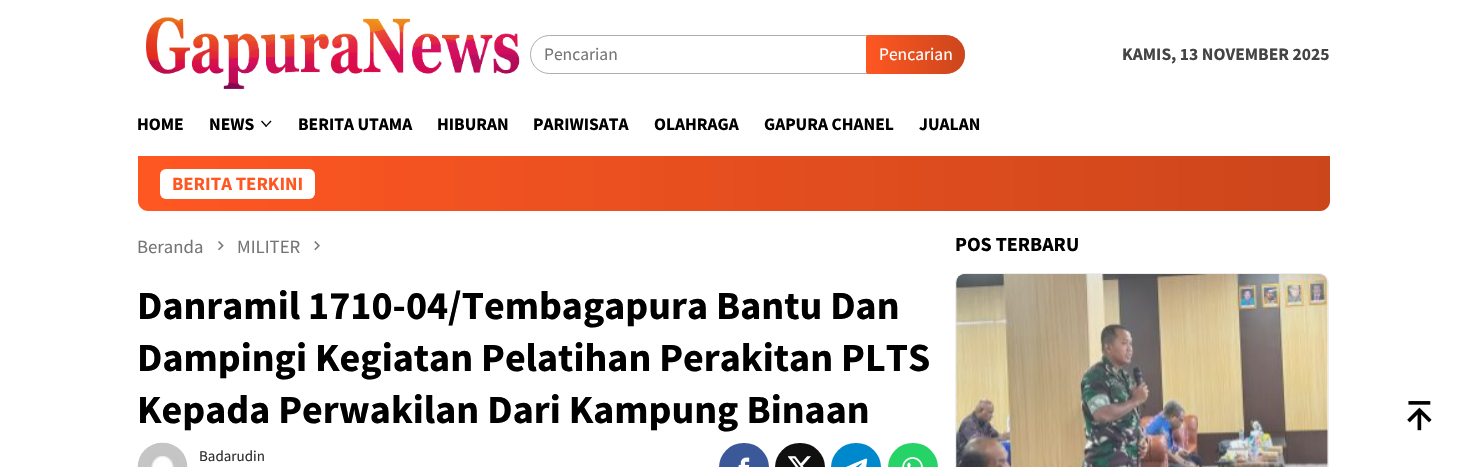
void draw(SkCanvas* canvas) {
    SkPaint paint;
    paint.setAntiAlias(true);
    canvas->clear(0xFFFFFFFF);
    canvas->drawImageRect(SkImages::DeferredFromEncodedData(SkData::MakeFromFileName("img1.png")), SkRect::MakeXYWH(146, 17, 374, 72), SkSamplingOptions());
    paint.setStyle(SkPaint::kStroke_Style);
    paint.setStrokeWidth(1);
    paint.setColor(0xFFADADAD);
    canvas->drawRoundRect(SkRect::MakeXYWH(530.5f, 35.5f, 434, 38), 19, 19, paint);
    SkFont font1(fontMgr->matchFamilyStyle("Source Sans Pro", SkFontStyle::Normal()), 17.5f);
    font1.setSubpixel(true);
    paint.setStyle(SkPaint::kFill_Style);
    paint.setColor(0xFF757575);
    canvas->drawString("Pencarian", 544, 60, font1, paint);
    paint.setColor(0xFFFF5722);
    canvas->drawPath(SkPathBuilder().moveTo(868.5f, 35).lineTo(945.5f, 35).cubicTo(956.5f, 35, 965, 43.5f, 965, 54.5f).cubicTo(965, 65.5f, 956.5f, 74, 945.5f, 74).lineTo(868.5f, 74).cubicTo(867, 74, 866, 73, 866, 71.5f).lineTo(866, 37.5f).cubicTo(866, 36, 867, 35, 868.5f, 35).close().detach(), paint);
    {
        const SkColor colors[] = {0x00000000, 0x33000000};
        const float stops[] = {0, 1};
        const SkPoint ends[] = {{866, 54}, {965, 54}};
        paint.setShader(SkGradientShader::MakeLinear(ends, colors, stops, 2, SkTileMode::kClamp));
        paint.setAlpha(255);
    }
    canvas->drawPath(SkPathBuilder().moveTo(868.5f, 35).lineTo(945.5f, 35).cubicTo(956.5f, 35, 965, 43.5f, 965, 54.5f).cubicTo(965, 65.5f, 956.5f, 74, 945.5f, 74).lineTo(868.5f, 74).cubicTo(867, 74, 866, 73, 866, 71.5f).lineTo(866, 37.5f).cubicTo(866, 36, 867, 35, 868.5f, 35).close().detach(), paint);
    paint.setShader(nullptr);
    paint.setColor(0xFFFFFFFF);
    canvas->drawString("Pencarian", 879, 60, font1, paint);
    SkFont font2(fontMgr->matchFamilyStyle("Source Sans Pro", SkFontStyle::Bold()), 17.5f);
    font2.setSubpixel(true);
    paint.setColor(0xFF444444);
    canvas->drawString("KAMIS, 13 NOVEMBER 2025", 1122, 60, font2, paint);
    paint.setColor(0xFF000000);
    canvas->drawString("HOME", 137, 130, font2, paint);
    canvas->drawString("NEWS", 209, 130, font2, paint);
    canvas->drawPath(SkPathBuilder().moveTo(270.5f, 120.5f).lineTo(271.5f, 121.5f).lineTo(266, 127).lineTo(265.5f, 126).close().detach(), paint);
    canvas->drawPath(SkPathBuilder().moveTo(262, 120.5f).lineTo(267, 126).lineTo(266, 127).lineTo(261, 121.5f).close().detach(), paint);
    canvas->drawString("BERITA UTAMA", 298, 130, font2, paint);
    canvas->drawString("HIBURAN", 437, 130, font2, paint);
    canvas->drawString("PARIWISATA", 533, 130, font2, paint);
    canvas->drawString("OLAHRAGA", 654, 130, font2, paint);
    canvas->drawString("GAPURA CHANEL", 764, 130, font2, paint);
    canvas->drawString("JUALAN", 919, 130, font2, paint);
    paint.setColor(0xFFFF5722);
    canvas->drawPath(SkPathBuilder().moveTo(138, 156).lineTo(1330, 156).lineTo(1330, 201).cubicTo(1330, 206.5f, 1325.5f, 211, 1320, 211).lineTo(148, 211).cubicTo(142.5f, 211, 138, 206.5f, 138, 201).close().detach(), paint);
    {
        const SkColor colors[] = {0x00000000, 0x33000000};
        const float stops[] = {0, 1};
        const SkPoint ends[] = {{138, 184}, {1330, 184}};
        paint.setShader(SkGradientShader::MakeLinear(ends, colors, stops, 2, SkTileMode::kClamp));
        paint.setAlpha(255);
    }
    canvas->drawPath(SkPathBuilder().moveTo(138, 156).lineTo(1330, 156).lineTo(1330, 201).cubicTo(1330, 206.5f, 1325.5f, 211, 1320, 211).lineTo(148, 211).cubicTo(142.5f, 211, 138, 206.5f, 138, 201).close().detach(), paint);
    paint.setShader(nullptr);
    paint.setColor(0xFFFFFFFF);
    canvas->drawRoundRect(SkRect::MakeXYWH(160, 169, 155, 30), 6, 6, paint);
    SkFont font3(fontMgr->matchFamilyStyle("Source Sans Pro", SkFontStyle::Bold()), 18.75f);
    font3.setSubpixel(true);
    paint.setColor(0xFFFF5722);
    canvas->drawString("BERITA TERKINI", 172, 190, font3, paint);
    SkFont font4(fontMgr->matchFamilyStyle("Source Sans Pro", SkFontStyle::Normal()), 18.75f);
    font4.setSubpixel(true);
    paint.setColor(0xFF757575);
    canvas->drawString("Beranda", 137, 253, font4, paint);
    canvas->drawImageRect(SkImages::DeferredFromEncodedData(SkData::MakeFromFileName("img2.png")), SkRect::MakeXYWH(218, 241, 6, 10), SkSamplingOptions());
    canvas->drawString("MILITER", 237, 253, font4, paint);
    canvas->drawImageRect(SkImages::DeferredFromEncodedData(SkData::MakeFromFileName("img3.png")), SkRect::MakeXYWH(314, 241, 6, 10), SkSamplingOptions());
    SkFont font5(fontMgr->matchFamilyStyle("Source Sans Pro", SkFontStyle::Bold()), 40);
    font5.setSubpixel(true);
    paint.setColor(0xFF000000);
    canvas->drawString("Danramil 1710-04/Tembagapura Bantu Dan", 137, 319, font5, paint);
    canvas->drawString("Dampingi Kegiatan Pelatihan Perakitan PLTS", 137, 371, font5, paint);
    canvas->drawString("Kepada Perwakilan Dari Kampung Binaan", 137, 423, font5, paint);
    canvas->drawImageRect(SkImages::DeferredFromEncodedData(SkData::MakeFromFileName("img4.png")), SkRect::MakeXYWH(137, 442, 51, 25), SkSamplingOptions());
    SkFont font6(fontMgr->matchFamilyStyle("Source Sans Pro", SkFontStyle::Normal()), 15);
    font6.setSubpixel(true);
    paint.setColor(0xFF2E2E2E);
    canvas->drawString("Badarudin", 199, 461, font6, paint);
    paint.setColor(0xFF3B5998);
    canvas->drawRoundRect(SkRect::MakeXYWH(719, 443, 50, 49), 25, 25, paint);
    canvas->drawImageRect(SkImages::DeferredFromEncodedData(SkData::MakeFromFileName("img5.png")), SkRect::MakeXYWH(738, 457, 12, 10), SkSamplingOptions());
    paint.setColor(0xFF101010);
    canvas->drawRoundRect(SkRect::MakeXYWH(775, 443, 50, 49), 25, 25, paint);
    canvas->drawImageRect(SkImages::DeferredFromEncodedData(SkData::MakeFromFileName("img6.png")), SkRect::MakeXYWH(788, 456, 23, 11), SkSamplingOptions());
    paint.setColor(0xFF0088CC);
    canvas->drawRoundRect(SkRect::MakeXYWH(831, 443, 50, 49), 25, 25, paint);
    canvas->drawImageRect(SkImages::DeferredFromEncodedData(SkData::MakeFromFileName("img7.png")), SkRect::MakeXYWH(846, 458, 22, 9), SkSamplingOptions());
    paint.setColor(0xFF25D366);
    canvas->drawRoundRect(SkRect::MakeXYWH(888, 443, 50, 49), 25, 25, paint);
    canvas->drawImageRect(SkImages::DeferredFromEncodedData(SkData::MakeFromFileName("img8.png")), SkRect::MakeXYWH(902, 457, 21, 10), SkSamplingOptions());
    SkFont font7(fontMgr->matchFamilyStyle("Source Sans Pro", SkFontStyle::Bold()), 20);
    font7.setSubpixel(true);
    paint.setColor(0xFF000000);
    canvas->drawString("POS TERBARU", 955, 251, font7, paint);
    paint.setStyle(SkPaint::kStroke_Style);
    paint.setColor(0xFFEEEEEE);
    canvas->drawRoundRect(SkRect::MakeXYWH(955.5f, 273.5f, 373, 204), 9.5f, 9.5f, paint);
    canvas->drawImageRect(SkImages::DeferredFromEncodedData(SkData::MakeFromFileName("img9.png")), SkRect::MakeXYWH(956, 274, 372, 193), SkSamplingOptions());
    canvas->drawImageRect(SkImages::DeferredFromEncodedData(SkData::MakeFromFileName("img10.png")), SkRect::MakeXYWH(1407, 401, 25, 30), SkSamplingOptions());
}
